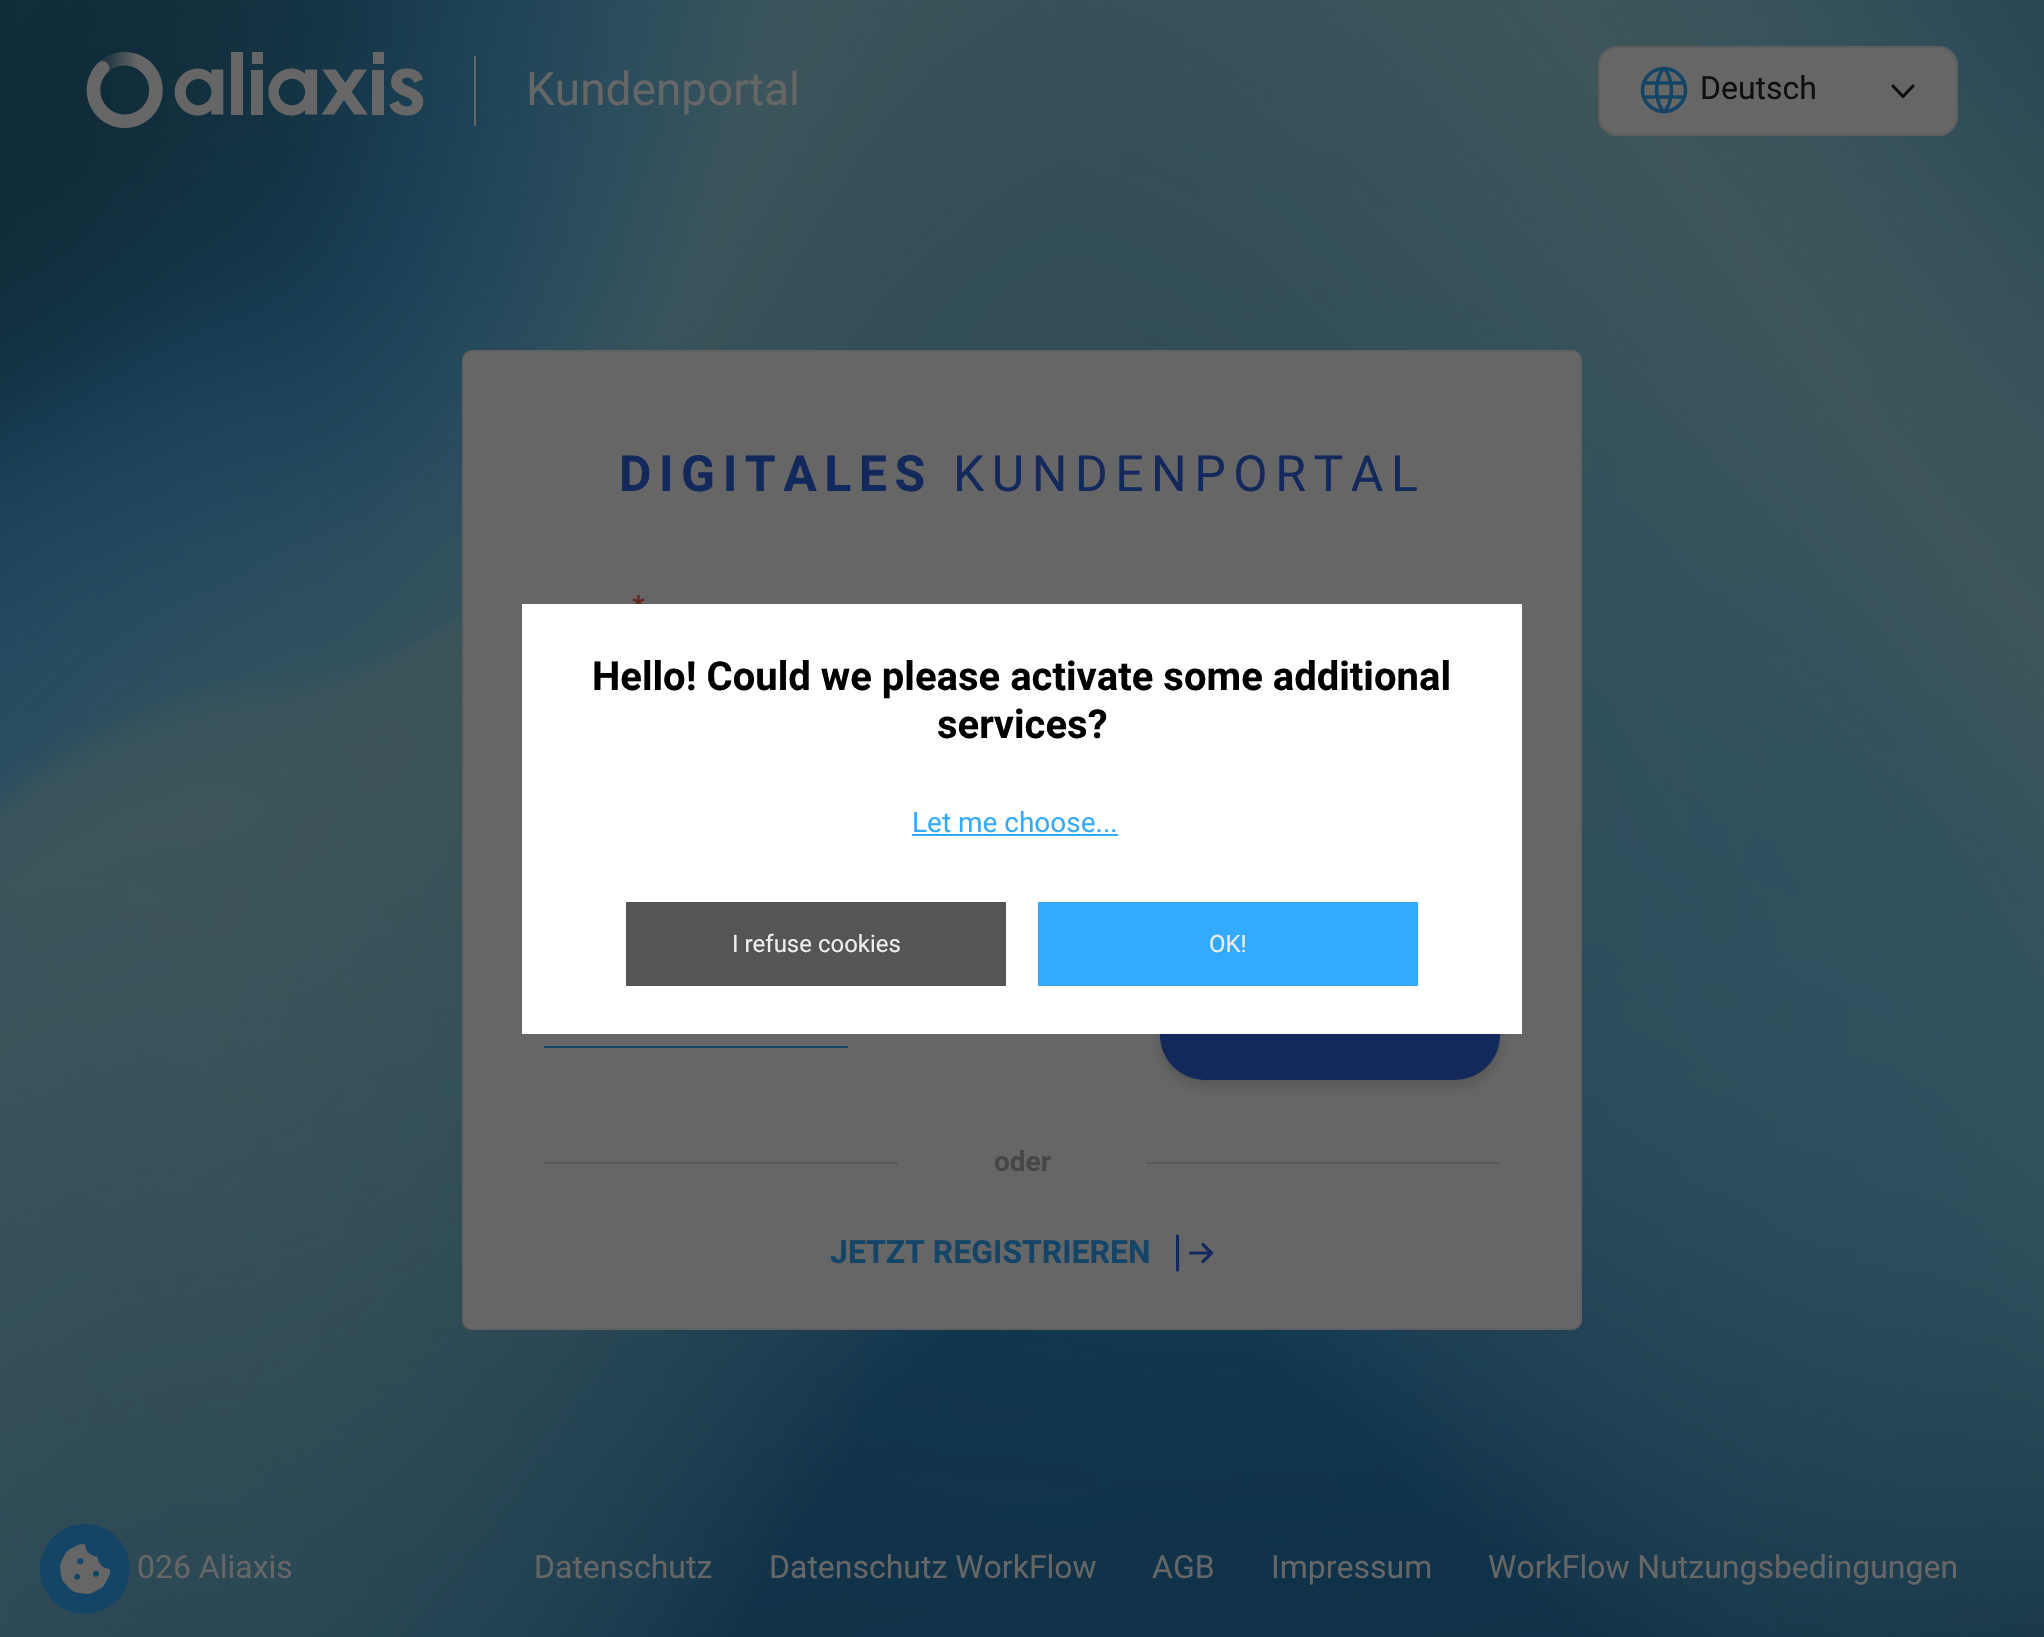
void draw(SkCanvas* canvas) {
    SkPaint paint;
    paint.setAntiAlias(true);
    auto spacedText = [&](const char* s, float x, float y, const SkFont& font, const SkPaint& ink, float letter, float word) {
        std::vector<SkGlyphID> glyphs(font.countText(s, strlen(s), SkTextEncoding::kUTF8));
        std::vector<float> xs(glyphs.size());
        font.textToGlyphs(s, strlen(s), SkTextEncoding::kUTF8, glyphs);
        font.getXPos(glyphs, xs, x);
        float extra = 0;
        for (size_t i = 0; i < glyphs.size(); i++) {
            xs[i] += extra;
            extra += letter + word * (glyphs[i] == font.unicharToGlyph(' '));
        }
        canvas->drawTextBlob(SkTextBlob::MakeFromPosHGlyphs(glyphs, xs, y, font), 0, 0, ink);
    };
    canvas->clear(0xFFFFFFFF);
    canvas->drawImageRect(SkImages::DeferredFromEncodedData(SkData::MakeFromFileName("img1.png")), SkRect::MakeXYWH(0, 0, 2044, 1637), SkSamplingOptions());
    canvas->drawImageRect(SkImages::DeferredFromEncodedData(SkData::MakeFromFileName("img2.png")), SkRect::MakeXYWH(86, 52, 338, 76), SkSamplingOptions());
    paint.setColor(0xFF666666);
    canvas->drawRect(SkRect::MakeXYWH(474, 56, 2, 70), paint);
    SkFont font1(fontMgr->matchFamilyStyle("Roboto", SkFontStyle::Normal()), 46);
    font1.setSubpixel(true);
    canvas->drawString("Kundenportal", 526, 105, font1, paint);
    canvas->drawRoundRect(SkRect::MakeXYWH(1598, 46, 360, 90), 20, 20, paint);
    paint.setStyle(SkPaint::kStroke_Style);
    paint.setStrokeWidth(3.1f);
    paint.setStrokeCap(SkPaint::kRound_Cap);
    paint.setStrokeJoin(SkPaint::kRound_Join);
    paint.setColor(0xFF0E0F11);
    canvas->drawPath(SkPathBuilder().moveTo(1893, 86).lineTo(1903, 96.5f).lineTo(1913, 86).detach(), paint);
    paint.setStrokeWidth(2);
    paint.setStrokeCap(SkPaint::kButt_Cap);
    paint.setStrokeJoin(SkPaint::kMiter_Join);
    paint.setColor(0xFF5D5E60);
    canvas->drawRoundRect(SkRect::MakeXYWH(1599, 47, 358, 88), 19, 19, paint);
    paint.setStrokeWidth(3.6f);
    paint.setColor(0xFF144466);
    canvas->drawCircle(1664, 90, 21.5f, paint);
    paint.setStrokeCap(SkPaint::kRound_Cap);
    paint.setStrokeJoin(SkPaint::kRound_Join);
    canvas->drawPath(SkPathBuilder().moveTo(1644, 83).lineTo(1684, 83).moveTo(1644, 97).lineTo(1684, 97).moveTo(1663, 68.5f).cubicTo(1654.5f, 81.5f, 1654.5f, 98.5f, 1663, 111.5f).moveTo(1665, 68.5f).cubicTo(1673.5f, 81.5f, 1673.5f, 98.5f, 1665, 111.5f).detach(), paint);
    SkFont font2(fontMgr->matchFamilyStyle("Roboto", SkFontStyle::Normal()), 32);
    font2.setSubpixel(true);
    paint.setStyle(SkPaint::kFill_Style);
    paint.setColor(0xFF0D0F10);
    canvas->drawString("Deutsch", 1700, 99, font2, paint);
    paint.setColor(0xFF666666);
    canvas->drawRoundRect(SkRect::MakeXYWH(463, 351, 1118, 978), 9, 9, paint);
    paint.setStyle(SkPaint::kStroke_Style);
    paint.setStrokeWidth(2);
    paint.setStrokeCap(SkPaint::kButt_Cap);
    paint.setStrokeJoin(SkPaint::kMiter_Join);
    paint.setColor(0xFF616161);
    canvas->drawRoundRect(SkRect::MakeXYWH(463, 351, 1118, 978), 9, 9, paint);
    SkFont font3(fontMgr->matchFamilyStyle("Roboto", SkFontStyle::Bold()), 50);
    font3.setSubpixel(true);
    paint.setStyle(SkPaint::kFill_Style);
    paint.setColor(0xFF13295B);
    spacedText("DIGITALES", 619, 491, font3, paint, 7.5f, 0);
    SkFont font4(fontMgr->matchFamilyStyle("Roboto", SkFontStyle::Normal()), 50);
    font4.setSubpixel(true);
    spacedText("KUNDENPORTAL", 953, 491, font4, paint, 7.5f, 0);
    SkFont font5(fontMgr->matchFamilyStyle("Roboto", SkFontStyle::Bold()), 28);
    font5.setSubpixel(true);
    paint.setColor(0xFF642723);
    canvas->drawString("*", 632, 615, font5, paint);
    paint.setColor(0xFF144466);
    canvas->drawRect(SkRect::MakeXYWH(544, 1046, 304, 2), paint);
    paint.setColor(0x29000000);
    paint.setMaskFilter(SkMaskFilter::MakeBlur(kNormal_SkBlurStyle, 6));
    canvas->drawRoundRect(SkRect::MakeXYWH(1160, 996, 340, 90), 45, 45, paint);
    paint.setMaskFilter(nullptr);
    paint.setColor(0xFF13295B);
    canvas->drawRoundRect(SkRect::MakeXYWH(1160, 990, 340, 90), 45, 45, paint);
    paint.setColor(0xFF5A5A5A);
    canvas->drawRect(SkRect::MakeXYWH(544, 1162, 956, 2), paint);
    paint.setColor(0xFF666666);
    canvas->drawRect(SkRect::MakeXYWH(898, 1162, 248, 2), paint);
    paint.setColor(0xFF474747);
    canvas->drawString("oder", 994, 1171, font5, paint);
    SkFont font6(fontMgr->matchFamilyStyle("Roboto", SkFontStyle::Bold()), 32);
    font6.setSubpixel(true);
    paint.setColor(0xFF144466);
    canvas->drawString("JETZT REGISTRIEREN", 830, 1263, font6, paint);
    paint.setStyle(SkPaint::kStroke_Style);
    paint.setStrokeWidth(3.2f);
    paint.setStrokeCap(SkPaint::kRound_Cap);
    paint.setStrokeJoin(SkPaint::kRound_Join);
    paint.setColor(0xFF13295B);
    canvas->drawPath(SkPathBuilder().moveTo(1211.5f, 1253).lineTo(1190.5f, 1253).moveTo(1211.5f, 1253).lineTo(1203, 1261.5f).moveTo(1211.5f, 1253).lineTo(1203, 1244.5f).detach(), paint);
    canvas->save();
    canvas->clipRect(SkRect::MakeXYWH(1176, 1234, 38, 38));
    canvas->drawPath(SkPathBuilder().moveTo(1177.5f, 1236).lineTo(1177.5f, 1270).detach(), paint);
    canvas->restore();
    paint.setStyle(SkPaint::kFill_Style);
    paint.setColor(0xFFFFFFFF);
    canvas->drawRect(SkRect::MakeXYWH(522, 604, 1000, 430), paint);
    SkFont font7(fontMgr->matchFamilyStyle("Roboto", SkFontStyle::Bold()), 40);
    font7.setSubpixel(true);
    paint.setColor(0xFF000000);
    canvas->drawString("Hello! Could we please activate some additional", 592, 690, font7, paint);
    canvas->drawString("services?", 937, 738, font7, paint);
    SkFont font8(fontMgr->matchFamilyStyle("Roboto", SkFontStyle::Normal()), 28);
    font8.setSubpixel(true);
    paint.setColor(0xFF32AAFF);
    canvas->drawString("Let me choose...", 912, 832, font8, paint);
    canvas->drawRect(SkRect::MakeXYWH(912, 834, 206, 2), paint);
    paint.setColor(0xFF555555);
    canvas->drawRect(SkRect::MakeXYWH(626, 902, 380, 84), paint);
    SkFont font9(fontMgr->matchFamilyStyle("Roboto", SkFontStyle::Normal()), 24);
    font9.setSubpixel(true);
    paint.setColor(0xFFEEEEEE);
    canvas->drawString("I refuse cookies", 732, 952, font9, paint);
    paint.setColor(0xFF32AAFF);
    canvas->drawRect(SkRect::MakeXYWH(1038, 902, 380, 84), paint);
    paint.setColor(0xFFEEEEEE);
    canvas->drawString("OK!", 1209, 952, font9, paint);
    paint.setColor(0xFF144466);
    canvas->drawCircle(85, 1569, 45, paint);
    canvas->drawImageRect(SkImages::DeferredFromEncodedData(SkData::MakeFromFileName("img3.png")), SkRect::MakeXYWH(60, 1544, 50, 50), SkSamplingOptions());
    paint.setColor(0xFF666666);
    canvas->drawString("026 Aliaxis", 137, 1578, font2, paint);
    canvas->drawString("Datenschutz", 534, 1578, font2, paint);
    canvas->drawString("Datenschutz WorkFlow", 769, 1578, font2, paint);
    canvas->drawString("AGB", 1152, 1578, font2, paint);
    canvas->drawString("Impressum", 1271, 1578, font2, paint);
    canvas->drawString("WorkFlow Nutzungsbedingungen", 1488, 1578, font2, paint);
}
